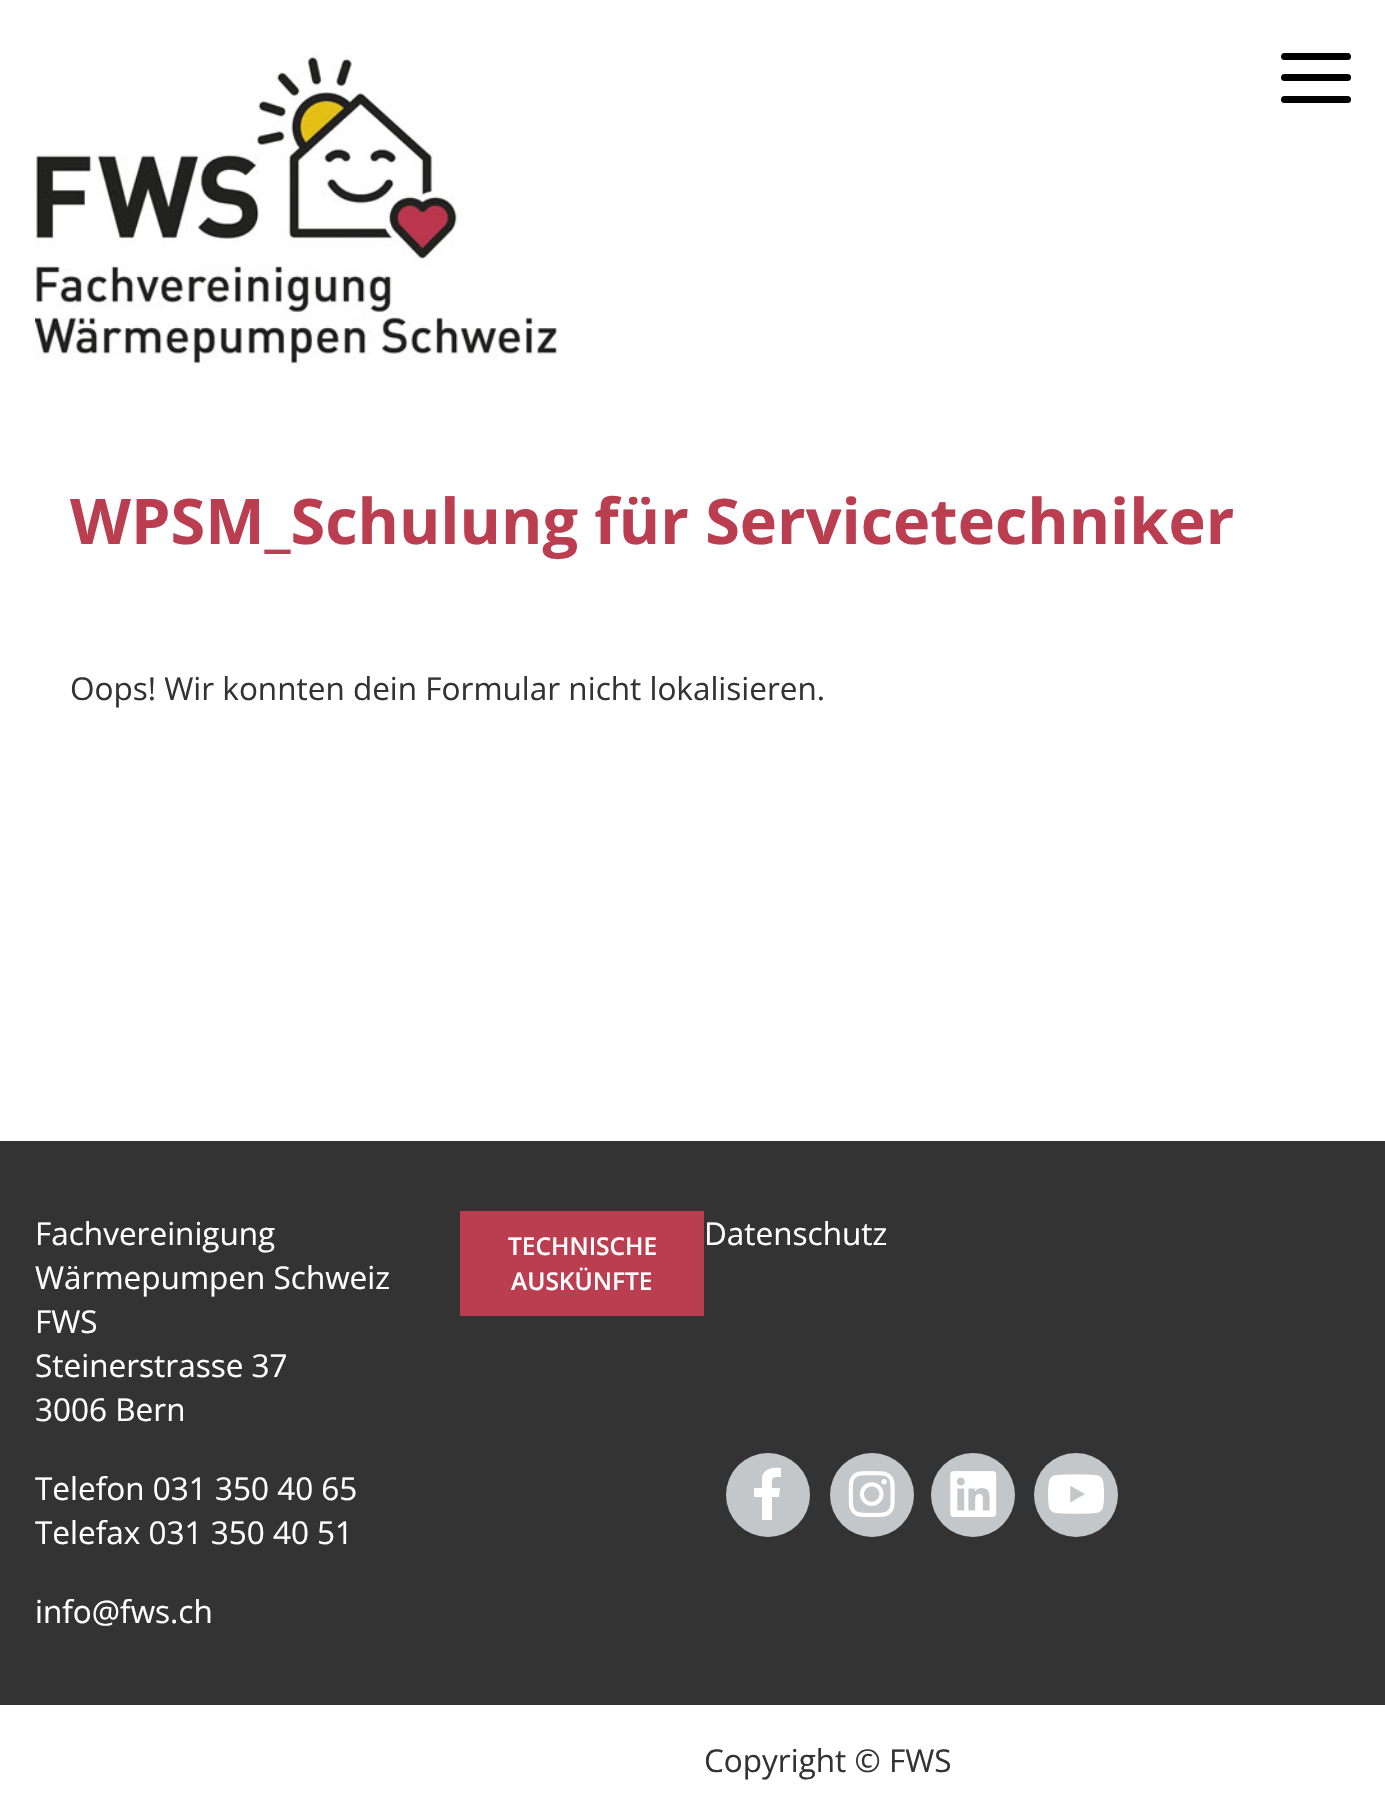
void draw(SkCanvas* canvas) {
    SkPaint paint;
    paint.setAntiAlias(true);
    canvas->clear(0xFFFFFFFF);
    canvas->drawImageRect(SkImages::DeferredFromEncodedData(SkData::MakeFromFileName("img1.png")), SkRect::MakeXYWH(35, 53, 523, 314), SkSamplingOptions());
    paint.setColor(0xFF000000);
    canvas->drawRoundRect(SkRect::MakeXYWH(1281, 53, 70, 7), 3.5f, 3.5f, paint);
    canvas->drawRoundRect(SkRect::MakeXYWH(1281, 74, 70, 7), 3.5f, 3.5f, paint);
    canvas->drawRoundRect(SkRect::MakeXYWH(1281, 96, 70, 7), 3.5f, 3.5f, paint);
    SkFont font1(fontMgr->matchFamilyStyle("Open Sans", SkFontStyle::Bold()), 63);
    font1.setSubpixel(true);
    paint.setColor(0xFFBA3E50);
    canvas->drawString("WPSM_Schulung für Servicetechniker", 70, 544, font1, paint);
    SkFont font2(fontMgr->matchFamilyStyle("Open Sans", SkFontStyle::Normal()), 31.5f);
    font2.setSubpixel(true);
    paint.setColor(0xFF333333);
    canvas->drawString("Oops! Wir konnten dein Formular nicht lokalisieren.", 70, 700, font2, paint);
    canvas->drawRect(SkRect::MakeXYWH(0, 1141, 1385, 564), paint);
    paint.setColor(0xFFFFFFFF);
    canvas->drawString("Fachvereinigung", 35, 1245, font2, paint);
    canvas->drawString("Wärmepumpen Schweiz", 35, 1289, font2, paint);
    canvas->drawString("FWS", 35, 1333, font2, paint);
    canvas->drawString("Steinerstrasse 37", 35, 1377, font2, paint);
    canvas->drawString("3006 Bern", 35, 1421, font2, paint);
    canvas->drawString("Telefon 031 350 40 65", 35, 1500, font2, paint);
    canvas->drawString("Telefax 031 350 40 51", 35, 1544, font2, paint);
    canvas->drawString("info@fws.ch", 35, 1623, font2, paint);
    canvas->drawString("Datenschutz", 704, 1245, font2, paint);
    paint.setColor(0xFFC3C7CA);
    canvas->drawCircle(768, 1495, 42, paint);
    paint.setColor(0xFFFFFFFF);
    canvas->drawPath(SkPathBuilder().moveTo(762, 1520).lineTo(762, 1497).lineTo(754, 1497).lineTo(754, 1488).lineTo(762, 1488).lineTo(762, 1477).cubicTo(764, 1468, 774, 1467, 781, 1468).lineTo(781, 1477).cubicTo(771, 1477, 772, 1477, 772, 1488).lineTo(780, 1488).lineTo(779, 1497).lineTo(772, 1497).lineTo(772, 1520).close().detach(), paint);
    paint.setColor(0xFFC3C7CA);
    canvas->drawCircle(872, 1495, 42, paint);
    canvas->drawImageRect(SkImages::DeferredFromEncodedData(SkData::MakeFromFileName("img2.png")), SkRect::MakeXYWH(848, 1471, 47, 46), SkSamplingOptions());
    canvas->drawCircle(973, 1495, 42, paint);
    canvas->drawImageRect(SkImages::DeferredFromEncodedData(SkData::MakeFromFileName("img3.png")), SkRect::MakeXYWH(950, 1471, 47, 46), SkSamplingOptions());
    canvas->drawCircle(1076, 1495, 42, paint);
    canvas->drawImageRect(SkImages::DeferredFromEncodedData(SkData::MakeFromFileName("img4.png")), SkRect::MakeXYWH(1048, 1474, 56, 40), SkSamplingOptions());
    paint.setColor(0xFFBA3E50);
    canvas->drawRect(SkRect::MakeXYWH(460, 1211, 244, 105), paint);
    SkFont font3(fontMgr->matchFamilyStyle("Open Sans", SkFontStyle(600, SkFontStyle::kNormal_Width, SkFontStyle::kUpright_Slant)), 24.5f);
    font3.setSubpixel(true);
    paint.setColor(0xFFFFFFFF);
    canvas->drawString("TECHNISCHE", 508, 1255, font3, paint);
    canvas->drawString("AUSKÜNFTE", 511, 1290, font3, paint);
    paint.setColor(0xFF333333);
    canvas->drawString("Copyright © FWS", 704, 1772, font2, paint);
}
